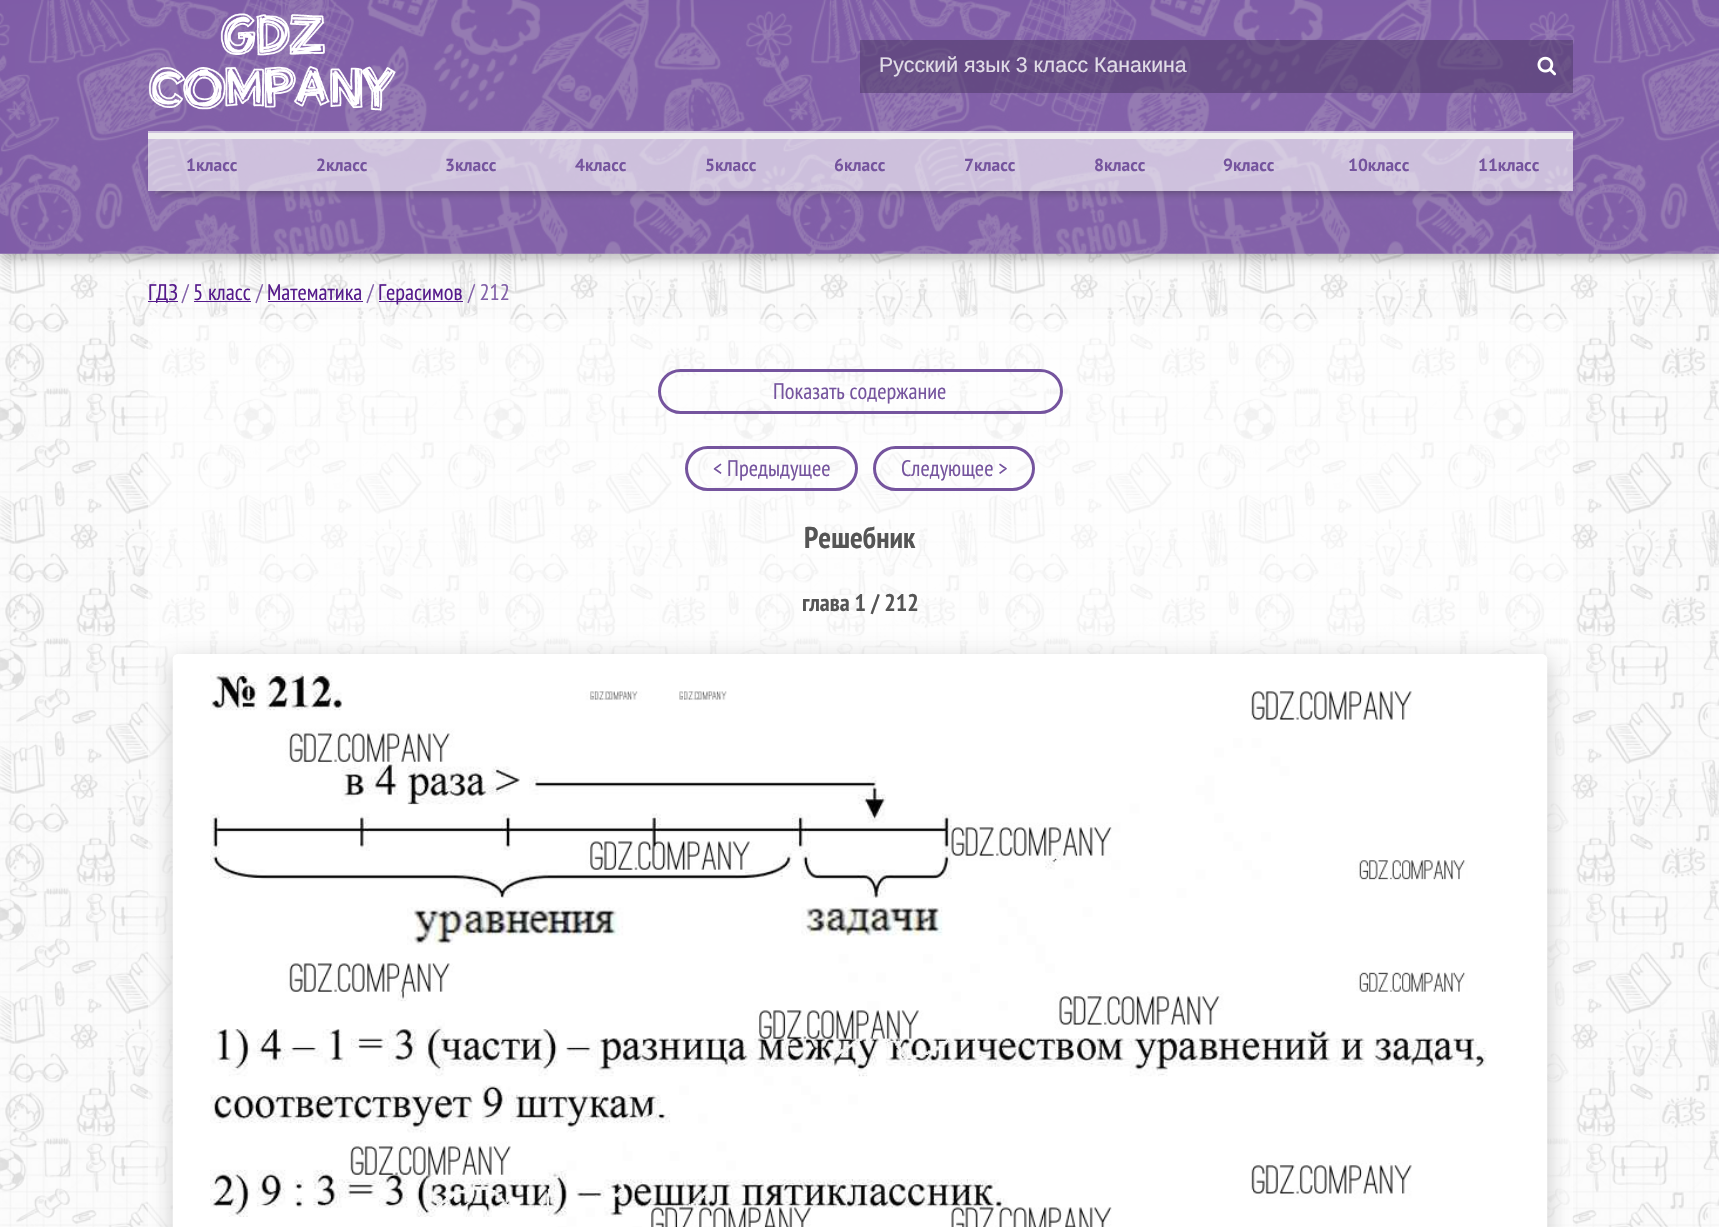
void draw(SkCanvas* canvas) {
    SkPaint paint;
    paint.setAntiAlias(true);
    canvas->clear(0xFFFFFFFF);
    canvas->drawImageRect(SkImages::DeferredFromEncodedData(SkData::MakeFromFileName("img1.png")), SkRect::MakeXYWH(0, 253, 1719, 974), SkSamplingOptions());
    paint.setColor(0x4D323232);
    paint.setMaskFilter(SkMaskFilter::MakeBlur(kNormal_SkBlurStyle, 6));
    canvas->drawRect(SkRect::MakeXYWH(0, 6, 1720, 254), paint);
    paint.setMaskFilter(nullptr);
    canvas->drawImageRect(SkImages::DeferredFromEncodedData(SkData::MakeFromFileName("img2.png")), SkRect::MakeXYWH(0, 0, 1719, 254), SkSamplingOptions());
    canvas->drawImageRect(SkImages::DeferredFromEncodedData(SkData::MakeFromFileName("img3.png")), SkRect::MakeXYWH(148, 13, 248, 98), SkSamplingOptions());
    paint.setColor(0x99513C6D);
    canvas->drawRect(SkRect::MakeXYWH(860, 40, 713, 53), paint);
    SkFont font1(fontMgr->matchFamilyStyle("Liberation Sans", SkFontStyle::Normal()), 21.25f);
    font1.setSubpixel(true);
    paint.setColor(0xFFE1DCE7);
    canvas->drawString("Русский язык 3 класс Канакина", 879, 72, font1, paint);
    canvas->drawImageRect(SkImages::DeferredFromEncodedData(SkData::MakeFromFileName("img4.png")), SkRect::MakeXYWH(1537, 56, 19, 20), SkSamplingOptions());
    canvas->save();
    canvas->clipPath(SkPathBuilder(SkPathFillType::kEvenOdd).moveTo(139, 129).lineTo(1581, 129).lineTo(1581, 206).lineTo(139, 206).close().moveTo(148, 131).lineTo(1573, 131).lineTo(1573, 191).lineTo(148, 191).close().detach(), true);
    paint.setColor(0xBF323232);
    paint.setMaskFilter(SkMaskFilter::MakeBlur(kNormal_SkBlurStyle, 5));
    canvas->drawRect(SkRect::MakeXYWH(155, 145, 1410, 45), paint);
    paint.setMaskFilter(nullptr);
    canvas->restore();
    paint.setColor(0x99FFFFFF);
    canvas->drawRect(SkRect::MakeXYWH(148, 131, 1425, 60), paint);
    paint.setColor(0xFFEFEFEF);
    canvas->drawRect(SkRect::MakeXYWH(148, 133, 1425, 6), paint);
    SkFont font2(fontMgr->matchFamilyStyle("PT Sans", SkFontStyle::Bold()), 17.5f);
    font2.setSubpixel(true);
    paint.setColor(0xFF75549E);
    canvas->drawString("1класс", 186, 171, font2, paint);
    canvas->drawString("2класс", 316, 171, font2, paint);
    canvas->drawString("3класс", 445, 171, font2, paint);
    canvas->drawString("4класс", 575, 171, font2, paint);
    canvas->drawString("5класс", 705, 171, font2, paint);
    canvas->drawString("6класс", 834, 171, font2, paint);
    canvas->drawString("7класс", 964, 171, font2, paint);
    canvas->drawString("8класс", 1094, 171, font2, paint);
    canvas->drawString("9класс", 1223, 171, font2, paint);
    canvas->drawString("10класс", 1348, 171, font2, paint);
    canvas->drawString("11класс", 1478, 171, font2, paint);
    paint.setColor(0xFF551A8B);
    canvas->drawRect(SkRect::MakeXYWH(148, 301, 30, 1), paint);
    SkFont font3(fontMgr->matchFamilyStyle("PT Sans Narrow", SkFontStyle::Normal()), 22.5f);
    font3.setSubpixel(true);
    canvas->drawString("ГДЗ", 148, 300, font3, paint);
    paint.setColor(0xFF8362A9);
    canvas->drawString("/", 182, 300, font3, paint);
    paint.setColor(0xFF551A8B);
    canvas->drawString("5 класс", 193, 300, font3, paint);
    canvas->drawRect(SkRect::MakeXYWH(194, 301, 57, 1), paint);
    paint.setColor(0xFF8362A9);
    canvas->drawString("/", 256, 300, font3, paint);
    paint.setColor(0xFF551A8B);
    canvas->drawString("Математика", 267, 300, font3, paint);
    canvas->drawRect(SkRect::MakeXYWH(268, 301, 95, 1), paint);
    paint.setColor(0xFF8362A9);
    canvas->drawString("/", 367, 300, font3, paint);
    paint.setColor(0xFF551A8B);
    canvas->drawRect(SkRect::MakeXYWH(379, 301, 84, 1), paint);
    canvas->drawString("Герасимов", 378, 300, font3, paint);
    paint.setColor(0xFF8362A9);
    canvas->drawString("/ 212", 468, 300, font3, paint);
    paint.setColor(0x99FFFFFF);
    canvas->drawRoundRect(SkRect::MakeXYWH(148, 319, 1425, 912), 4, 4, paint);
    paint.setStyle(SkPaint::kStroke_Style);
    paint.setStrokeWidth(3);
    paint.setColor(0xFF75549E);
    canvas->drawRoundRect(SkRect::MakeXYWH(659.5f, 370.5f, 402, 42), 21, 21, paint);
    paint.setStyle(SkPaint::kFill_Style);
    canvas->drawString("Показать содержание", 773, 399, font3, paint);
    paint.setStyle(SkPaint::kStroke_Style);
    canvas->drawRoundRect(SkRect::MakeXYWH(686.5f, 447.5f, 170, 42), 21, 21, paint);
    paint.setStyle(SkPaint::kFill_Style);
    canvas->drawString("< Предыдущее", 713, 476, font3, paint);
    paint.setStyle(SkPaint::kStroke_Style);
    canvas->drawRoundRect(SkRect::MakeXYWH(874.5f, 447.5f, 159, 42), 21, 21, paint);
    paint.setStyle(SkPaint::kFill_Style);
    canvas->drawString("Следующее >", 901, 476, font3, paint);
    SkFont font4(fontMgr->matchFamilyStyle("PT Sans Narrow", SkFontStyle::Bold()), 30);
    font4.setSubpixel(true);
    paint.setColor(0xFF555555);
    canvas->drawString("Решебник", 804, 548, font4, paint);
    SkFont font5(fontMgr->matchFamilyStyle("PT Sans Narrow", SkFontStyle::Bold()), 24);
    font5.setSubpixel(true);
    canvas->drawString("глава 1 / 212", 802, 611, font5, paint);
    paint.setColor(0x1C000000);
    paint.setMaskFilter(SkMaskFilter::MakeBlur(kNormal_SkBlurStyle, 12.5f));
    canvas->drawRoundRect(SkRect::MakeXYWH(173, 661, 1375, 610), 6, 6, paint);
    paint.setMaskFilter(nullptr);
    paint.setColor(0x1A000000);
    paint.setMaskFilter(SkMaskFilter::MakeBlur(kNormal_SkBlurStyle, 10));
    canvas->drawRoundRect(SkRect::MakeXYWH(173, 660, 1375, 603), 6, 6, paint);
    paint.setMaskFilter(nullptr);
    canvas->drawImageRect(SkImages::DeferredFromEncodedData(SkData::MakeFromFileName("img5.png")), SkRect::MakeXYWH(172, 654, 1376, 573), SkSamplingOptions());
}
